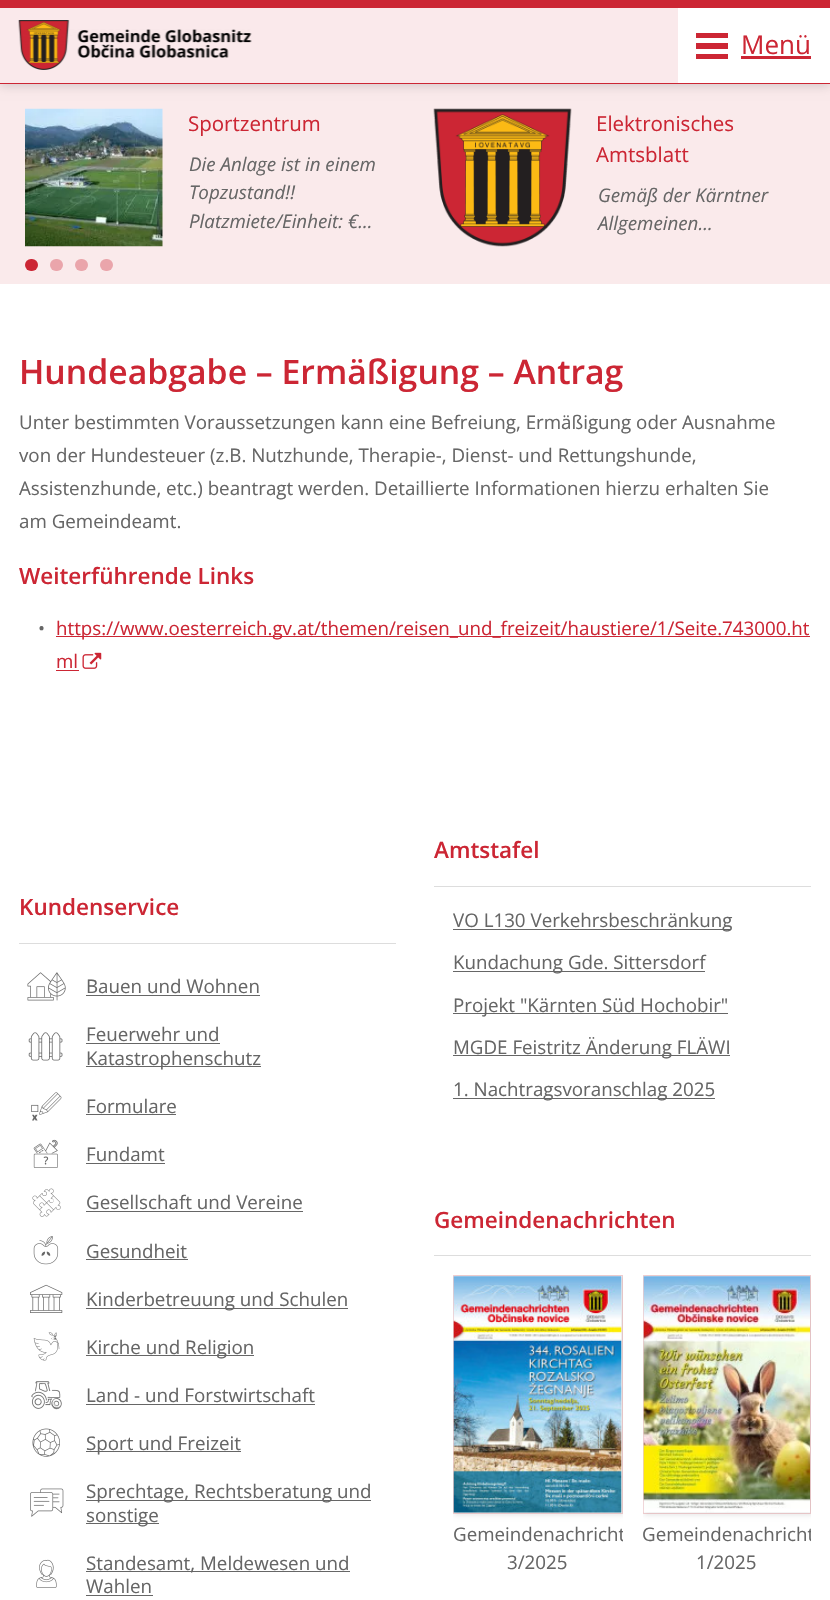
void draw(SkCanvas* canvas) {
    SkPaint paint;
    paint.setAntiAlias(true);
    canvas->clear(0xFFFFFFFF);
    paint.setColor(0xFFFAEAEB);
    canvas->drawRect(SkRect::MakeXYWH(0, 84, 830, 200), paint);
    paint.setColor(0x26000000);
    paint.setMaskFilter(SkMaskFilter::MakeBlur(kNormal_SkBlurStyle, 5));
    canvas->drawRect(SkRect::MakeXYWH(0, 3, 830, 83), paint);
    paint.setMaskFilter(nullptr);
    paint.setColor(0xFFCC2634);
    canvas->drawRect(SkRect::MakeXYWH(0, 0, 830, 8), paint);
    canvas->drawRect(SkRect::MakeXYWH(0, 83, 830, 1), paint);
    paint.setColor(0xFFFAE9EB);
    canvas->drawRect(SkRect::MakeXYWH(0, 8, 678, 75), paint);
    canvas->drawImageRect(SkImages::DeferredFromEncodedData(SkData::MakeFromFileName("img1.png")), SkRect::MakeXYWH(18, 20, 234, 50), SkSamplingOptions());
    paint.setColor(0xFFFFFFFF);
    canvas->drawRect(SkRect::MakeXYWH(678, 8, 152, 75), paint);
    paint.setColor(0xFFCC2634);
    canvas->drawRect(SkRect::MakeXYWH(696, 33, 32, 5), paint);
    canvas->drawRect(SkRect::MakeXYWH(696, 43, 32, 6), paint);
    canvas->drawRect(SkRect::MakeXYWH(696, 54, 32, 5), paint);
    SkFont font1(fontMgr->matchFamilyStyle("Open Sans", SkFontStyle::Normal()), 26);
    font1.setSubpixel(true);
    canvas->drawString("Menü", 741, 54, font1, paint);
    canvas->drawRect(SkRect::MakeXYWH(741, 56, 70, 3), paint);
    canvas->drawImageRect(SkImages::DeferredFromEncodedData(SkData::MakeFromFileName("img2.png")), SkRect::MakeXYWH(25, 108, 138, 139), SkSamplingOptions());
    SkFont font2(fontMgr->matchFamilyStyle("Open Sans", SkFontStyle::Normal()), 20.5f);
    font2.setSubpixel(true);
    canvas->drawString("Sportzentrum", 188, 131, font2, paint);
    SkFont font3(fontMgr->matchFamilyStyle("Open Sans", SkFontStyle::Italic()), 18.75f);
    font3.setSubpixel(true);
    paint.setColor(0xFF666666);
    canvas->drawString("Die Anlage ist in einem", 189, 171, font3, paint);
    canvas->drawString("Topzustand!!", 189, 199, font3, paint);
    canvas->drawString("Platzmiete/Einheit: €…", 189, 228, font3, paint);
    canvas->drawImageRect(SkImages::DeferredFromEncodedData(SkData::MakeFromFileName("img3.png")), SkRect::MakeXYWH(433, 108, 139, 139), SkSamplingOptions());
    paint.setColor(0xFFCC2634);
    canvas->drawString("Elektronisches", 596, 131, font2, paint);
    canvas->drawString("Amtsblatt", 596, 162, font2, paint);
    paint.setColor(0xFF666666);
    canvas->drawString("Gemäß der Kärntner", 598, 202, font3, paint);
    canvas->drawString("Allgemeinen…", 598, 230, font3, paint);
    paint.setColor(0xFFCC2634);
    canvas->drawRoundRect(SkRect::MakeXYWH(25, 259, 13, 12), 6, 6, paint);
    paint.setColor(0xFFEAA5AB);
    canvas->drawRoundRect(SkRect::MakeXYWH(50, 259, 13, 12), 6, 6, paint);
    canvas->drawRoundRect(SkRect::MakeXYWH(75, 259, 13, 12), 6, 6, paint);
    canvas->drawRoundRect(SkRect::MakeXYWH(100, 259, 13, 12), 6, 6, paint);
    SkFont font4(fontMgr->matchFamilyStyle("Open Sans", SkFontStyle(600, SkFontStyle::kNormal_Width, SkFontStyle::kUpright_Slant)), 33.75f);
    font4.setSubpixel(true);
    paint.setColor(0xFFCC2634);
    canvas->drawString("Hundeabgabe – Ermäßigung – Antrag", 19, 384, font4, paint);
    SkFont font5(fontMgr->matchFamilyStyle("Open Sans", SkFontStyle::Normal()), 18.75f);
    font5.setSubpixel(true);
    paint.setColor(0xFF666666);
    canvas->drawString("Unter bestimmten Voraussetzungen kann eine Befreiung, Ermäßigung oder Ausnahme", 19, 429, font5, paint);
    canvas->drawString("von der Hundesteuer (z.B. Nutzhunde, Therapie-, Dienst- und Rettungshunde,", 19, 462, font5, paint);
    canvas->drawString("Assistenzhunde, etc.) beantragt werden. Detaillierte Informationen hierzu erhalten Sie", 19, 495, font5, paint);
    canvas->drawString("am Gemeindeamt.", 19, 528, font5, paint);
    SkFont font6(fontMgr->matchFamilyStyle("Open Sans", SkFontStyle(600, SkFontStyle::kNormal_Width, SkFontStyle::kUpright_Slant)), 22.5f);
    font6.setSubpixel(true);
    paint.setColor(0xFFCC2634);
    canvas->drawString("Weiterführende Links", 19, 584, font6, paint);
    paint.setColor(0xFF666666);
    canvas->drawString("•", 38, 635, font5, paint);
    paint.setColor(0xFFCC2634);
    canvas->drawRect(SkRect::MakeXYWH(56, 636, 754, 1), paint);
    canvas->drawString("https://www.oesterreich.gv.at/themen/reisen_und_freizeit/haustiere/1/Seite.743000.ht", 56, 635, font5, paint);
    canvas->drawString("ml", 56, 668, font5, paint);
    canvas->drawRect(SkRect::MakeXYWH(56, 670, 23, 1), paint);
    canvas->drawImageRect(SkImages::DeferredFromEncodedData(SkData::MakeFromFileName("img4.png")), SkRect::MakeXYWH(82, 652, 20, 17), SkSamplingOptions());
    paint.setColor(0xFFDDDDDD);
    canvas->drawRect(SkRect::MakeXYWH(19, 943, 377, 1), paint);
    paint.setColor(0xFFCC2634);
    canvas->drawString("Kundenservice", 19, 915, font6, paint);
    canvas->drawImageRect(SkImages::DeferredFromEncodedData(SkData::MakeFromFileName("img5.png")), SkRect::MakeXYWH(27, 972, 39, 29), SkSamplingOptions());
    paint.setColor(0xFF666666);
    canvas->drawString("Bauen und Wohnen", 86, 993, font5, paint);
    canvas->drawRect(SkRect::MakeXYWH(86, 995, 174, 1), paint);
    canvas->drawImageRect(SkImages::DeferredFromEncodedData(SkData::MakeFromFileName("img6.png")), SkRect::MakeXYWH(28, 1032, 35, 29), SkSamplingOptions());
    canvas->drawString("Feuerwehr und", 86, 1041, font5, paint);
    canvas->drawRect(SkRect::MakeXYWH(86, 1043, 134, 1), paint);
    canvas->drawRect(SkRect::MakeXYWH(86, 1066, 175, 1), paint);
    canvas->drawString("Katastrophenschutz", 86, 1065, font5, paint);
    canvas->drawImageRect(SkImages::DeferredFromEncodedData(SkData::MakeFromFileName("img7.png")), SkRect::MakeXYWH(31, 1092, 31, 29), SkSamplingOptions());
    canvas->drawString("Formulare", 86, 1113, font5, paint);
    canvas->drawRect(SkRect::MakeXYWH(86, 1114, 90, 1), paint);
    canvas->drawImageRect(SkImages::DeferredFromEncodedData(SkData::MakeFromFileName("img8.png")), SkRect::MakeXYWH(33, 1139, 25, 29), SkSamplingOptions());
    canvas->drawString("Fundamt", 86, 1161, font5, paint);
    canvas->drawRect(SkRect::MakeXYWH(86, 1163, 79, 1), paint);
    canvas->drawImageRect(SkImages::DeferredFromEncodedData(SkData::MakeFromFileName("img9.png")), SkRect::MakeXYWH(32, 1188, 29, 29), SkSamplingOptions());
    canvas->drawString("Gesellschaft und Vereine", 86, 1209, font5, paint);
    canvas->drawRect(SkRect::MakeXYWH(86, 1211, 217, 1), paint);
    canvas->drawImageRect(SkImages::DeferredFromEncodedData(SkData::MakeFromFileName("img10.png")), SkRect::MakeXYWH(33, 1236, 26, 29), SkSamplingOptions());
    canvas->drawString("Gesundheit", 86, 1258, font5, paint);
    canvas->drawRect(SkRect::MakeXYWH(86, 1259, 102, 1), paint);
    canvas->drawImageRect(SkImages::DeferredFromEncodedData(SkData::MakeFromFileName("img11.png")), SkRect::MakeXYWH(30, 1284, 33, 29), SkSamplingOptions());
    canvas->drawRect(SkRect::MakeXYWH(86, 1308, 262, 1), paint);
    canvas->drawString("Kinderbetreuung und Schulen", 86, 1306, font5, paint);
    canvas->drawImageRect(SkImages::DeferredFromEncodedData(SkData::MakeFromFileName("img12.png")), SkRect::MakeXYWH(33, 1332, 27, 29), SkSamplingOptions());
    canvas->drawRect(SkRect::MakeXYWH(86, 1355, 168, 1), paint);
    canvas->drawString("Kirche und Religion", 86, 1354, font5, paint);
    canvas->drawImageRect(SkImages::DeferredFromEncodedData(SkData::MakeFromFileName("img13.png")), SkRect::MakeXYWH(31, 1381, 31, 29), SkSamplingOptions());
    canvas->drawString("Land - und Forstwirtschaft", 86, 1402, font5, paint);
    canvas->drawRect(SkRect::MakeXYWH(86, 1404, 229, 1), paint);
    canvas->drawImageRect(SkImages::DeferredFromEncodedData(SkData::MakeFromFileName("img14.png")), SkRect::MakeXYWH(32, 1428, 28, 29), SkSamplingOptions());
    canvas->drawRect(SkRect::MakeXYWH(86, 1451, 155, 1), paint);
    canvas->drawString("Sport und Freizeit", 86, 1450, font5, paint);
    canvas->drawImageRect(SkImages::DeferredFromEncodedData(SkData::MakeFromFileName("img15.png")), SkRect::MakeXYWH(30, 1488, 34, 29), SkSamplingOptions());
    canvas->drawRect(SkRect::MakeXYWH(86, 1500, 285, 1), paint);
    canvas->drawString("Sprechtage, Rechtsberatung und", 86, 1498, font5, paint);
    canvas->drawRect(SkRect::MakeXYWH(86, 1523, 73, 1), paint);
    canvas->drawString("sonstige", 86, 1522, font5, paint);
    canvas->drawImageRect(SkImages::DeferredFromEncodedData(SkData::MakeFromFileName("img16.png")), SkRect::MakeXYWH(36, 1559, 21, 29), SkSamplingOptions());
    canvas->drawRect(SkRect::MakeXYWH(86, 1571, 264, 1), paint);
    canvas->drawString("Standesamt, Meldewesen und", 86, 1570, font5, paint);
    canvas->drawString("Wahlen", 86, 1593, font5, paint);
    canvas->drawRect(SkRect::MakeXYWH(86, 1595, 67, 1), paint);
    paint.setColor(0xFFDDDDDD);
    canvas->drawRect(SkRect::MakeXYWH(434, 886, 377, 1), paint);
    paint.setColor(0xFFCC2634);
    canvas->drawString("Amtstafel", 434, 858, font6, paint);
    paint.setColor(0xFF666666);
    canvas->drawRect(SkRect::MakeXYWH(453, 929, 278, 1), paint);
    canvas->drawString("VO L130 Verkehrsbeschränkung", 453, 927, font5, paint);
    canvas->drawRect(SkRect::MakeXYWH(453, 971, 252, 1), paint);
    canvas->drawString("Kundachung Gde. Sittersdorf", 453, 969, font5, paint);
    canvas->drawRect(SkRect::MakeXYWH(453, 1013, 275, 1), paint);
    canvas->drawString("Projekt \"Kärnten Süd Hochobir\"", 453, 1012, font5, paint);
    canvas->drawRect(SkRect::MakeXYWH(453, 1055, 277, 1), paint);
    canvas->drawString("MGDE Feistritz Änderung FLÄWI", 453, 1054, font5, paint);
    canvas->drawRect(SkRect::MakeXYWH(453, 1098, 262, 1), paint);
    canvas->drawString("1. Nachtragsvoranschlag 2025", 453, 1096, font5, paint);
    paint.setColor(0xFFDDDDDD);
    canvas->drawRect(SkRect::MakeXYWH(434, 1255, 377, 1), paint);
    paint.setColor(0xFFCC2634);
    canvas->drawString("Gemeindenachrichten", 434, 1228, font6, paint);
    canvas->save();
    canvas->clipRect(SkRect::MakeXYWH(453, 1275, 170, 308));
    paint.setColor(0x1A000000);
    paint.setMaskFilter(SkMaskFilter::MakeBlur(kNormal_SkBlurStyle, 2.5f));
    canvas->drawRect(SkRect::MakeXYWH(454, 1276, 170, 239), paint);
    paint.setMaskFilter(nullptr);
    canvas->restore();
    paint.setStyle(SkPaint::kStroke_Style);
    paint.setStrokeWidth(1);
    paint.setColor(0x33CC2634);
    canvas->drawRect(SkRect::MakeXYWH(453.5f, 1275.5f, 169, 238), paint);
    canvas->drawImageRect(SkImages::DeferredFromEncodedData(SkData::MakeFromFileName("img17.png")), SkRect::MakeXYWH(453, 1276, 169, 237), SkSamplingOptions());
    canvas->save();
    canvas->clipRect(SkRect::MakeXYWH(453, 1275, 170, 308));
    paint.setStyle(SkPaint::kFill_Style);
    paint.setColor(0xFF666666);
    canvas->drawString("Gemeindenachricht", 453, 1541, font5, paint);
    canvas->restore();
    canvas->drawString("3/2025", 507, 1569, font5, paint);
    canvas->save();
    canvas->clipRect(SkRect::MakeXYWH(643, 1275, 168, 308));
    paint.setColor(0x1A000000);
    paint.setMaskFilter(SkMaskFilter::MakeBlur(kNormal_SkBlurStyle, 2.5f));
    canvas->drawRect(SkRect::MakeXYWH(644, 1276, 169, 239), paint);
    paint.setMaskFilter(nullptr);
    canvas->restore();
    paint.setStyle(SkPaint::kStroke_Style);
    paint.setColor(0x33CC2634);
    canvas->drawRect(SkRect::MakeXYWH(643.5f, 1275.5f, 167, 238), paint);
    canvas->drawImageRect(SkImages::DeferredFromEncodedData(SkData::MakeFromFileName("img18.png")), SkRect::MakeXYWH(643, 1276, 167, 237), SkSamplingOptions());
    canvas->save();
    canvas->clipRect(SkRect::MakeXYWH(643, 1275, 168, 308));
    paint.setStyle(SkPaint::kFill_Style);
    paint.setColor(0xFF666666);
    canvas->drawString("Gemeindenachricht", 642, 1541, font5, paint);
    canvas->restore();
    canvas->drawString("1/2025", 696, 1569, font5, paint);
}
